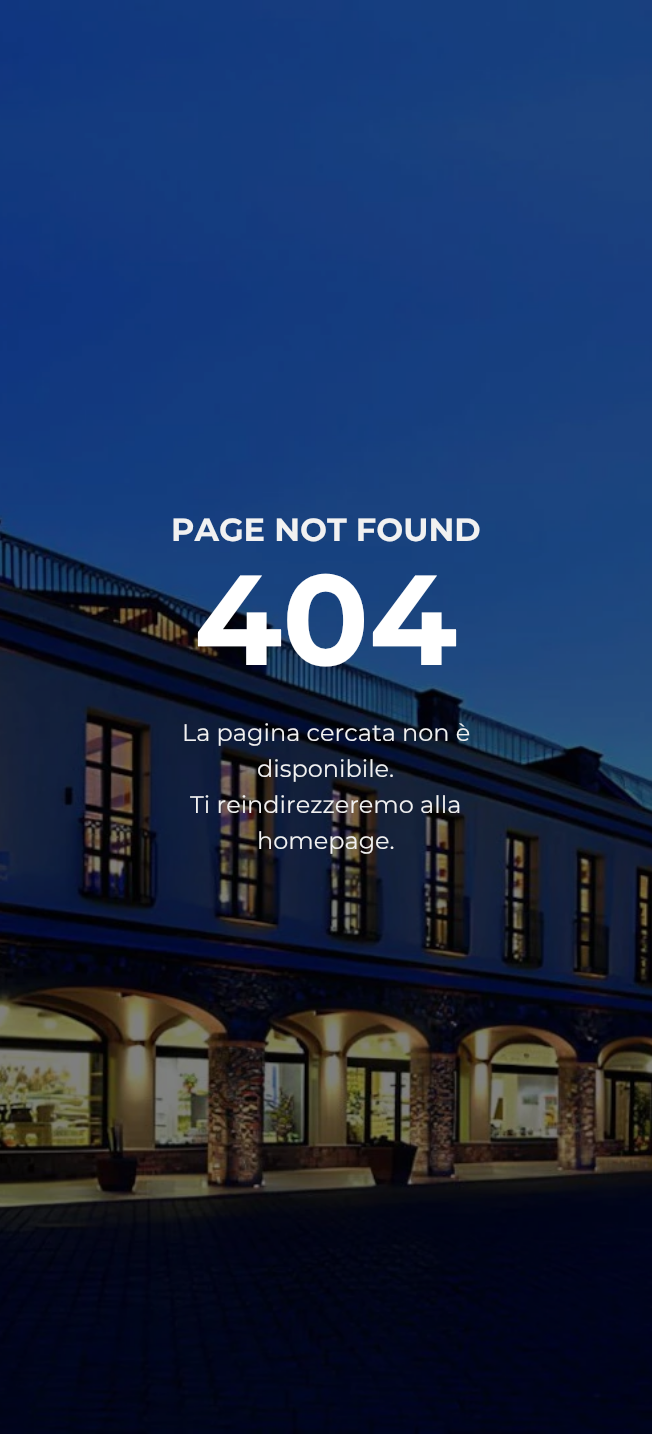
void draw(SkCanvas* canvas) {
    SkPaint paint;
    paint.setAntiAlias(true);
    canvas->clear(0xFFFFFFFF);
    canvas->drawImageRect(SkImages::DeferredFromEncodedData(SkData::MakeFromFileName("img1.png")), SkRect::MakeXYWH(0, 0, 652, 1434), SkSamplingOptions());
    SkFont font1(fontMgr->matchFamilyStyle("Montserrat", SkFontStyle::Bold()), 32);
    font1.setSubpixel(true);
    paint.setColor(0xFFF1F1F1);
    canvas->drawString("PAGE NOT FOUND", 171, 541, font1, paint);
    SkFont font2(fontMgr->matchFamilyStyle("Montserrat", SkFontStyle::Bold()), 128);
    font2.setSubpixel(true);
    paint.setColor(0xFFFFFFFF);
    canvas->drawString("404", 194, 665, font2, paint);
    SkFont font3(fontMgr->matchFamilyStyle("Montserrat", SkFontStyle::Normal()), 24);
    font3.setSubpixel(true);
    paint.setColor(0xFFF1F1F1);
    canvas->drawString("La pagina cercata non è", 182, 741, font3, paint);
    canvas->drawString("disponibile.", 257, 777, font3, paint);
    canvas->drawString("Ti reindirezzeremo alla", 190, 813, font3, paint);
    canvas->drawString("homepage.", 257, 849, font3, paint);
}
